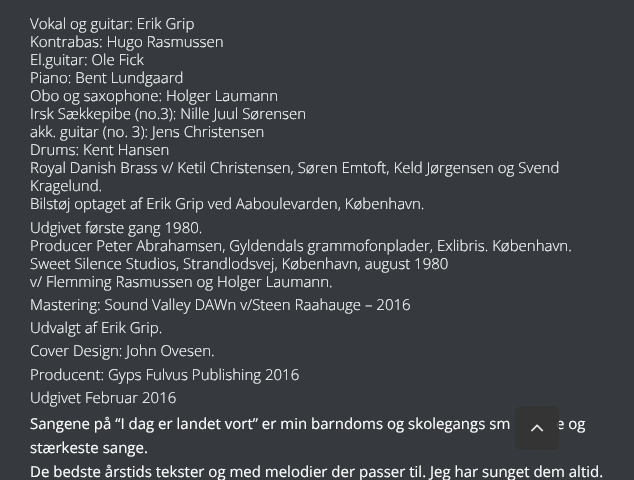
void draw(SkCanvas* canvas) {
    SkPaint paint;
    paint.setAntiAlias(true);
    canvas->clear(0xFF363A3F);
    SkFont font1(fontMgr->matchFamilyStyle("Open Sans", SkFontStyle(300, SkFontStyle::kNormal_Width, SkFontStyle::kUpright_Slant)), 15);
    font1.setSubpixel(true);
    paint.setColor(0xFFFFFFFF);
    canvas->drawString("Vokal og guitar: Erik Grip", 30, 29, font1, paint);
    canvas->drawString("Kontrabas: Hugo Rasmussen", 30, 47, font1, paint);
    canvas->drawString("El.guitar: Ole Fick", 30, 65, font1, paint);
    canvas->drawString("Piano: Bent Lundgaard", 30, 83, font1, paint);
    canvas->drawString("Obo og saxophone: Holger Laumann", 30, 101, font1, paint);
    canvas->drawString("Irsk Sækkepibe (no.3): Nille Juul Sørensen", 30, 119, font1, paint);
    canvas->drawString("akk. guitar (no. 3): Jens Christensen", 30, 137, font1, paint);
    canvas->drawString("Drums: Kent Hansen", 30, 155, font1, paint);
    canvas->drawString("Royal Danish Brass v/ Ketil Christensen, Søren Emtoft, Keld Jørgensen og Svend", 30, 173, font1, paint);
    canvas->drawString("Kragelund.", 30, 191, font1, paint);
    canvas->drawString("Bilstøj optaget af Erik Grip ved Aaboulevarden, København.", 30, 209, font1, paint);
    canvas->drawString("Udgivet første gang 1980.", 30, 233, font1, paint);
    canvas->drawString("Producer Peter Abrahamsen, Gyldendals grammofonplader, Exlibris. København.", 30, 251, font1, paint);
    canvas->drawString("Sweet Silence Studios, Strandlodsvej, København, august 1980", 30, 269, font1, paint);
    canvas->drawString("v/ Flemming Rasmussen og Holger Laumann.", 30, 287, font1, paint);
    canvas->drawString("Mastering: Sound Valley DAWn v/Steen Raahauge – 2016", 30, 310, font1, paint);
    canvas->drawString("Udvalgt af Erik Grip.", 30, 333, font1, paint);
    canvas->drawString("Cover Design: John Ovesen.", 30, 356, font1, paint);
    canvas->drawString("Producent: Gyps Fulvus Publishing 2016", 30, 380, font1, paint);
    canvas->drawString("Udgivet Februar 2016", 30, 403, font1, paint);
    SkFont font2(fontMgr->matchFamilyStyle("Open Sans", SkFontStyle::Normal()), 15);
    font2.setSubpixel(true);
    canvas->drawString("Sangene på “I dag er landet vort” er min barndoms og skolegangs sm", 30, 429, font2, paint);
    canvas->drawString("e og", 556, 429, font2, paint);
    canvas->drawString("stærkeste sange.", 30, 453, font2, paint);
    canvas->drawString("De bedste årstids tekster og med melodier der passer til. Jeg har sunget dem altid.", 30, 477, font2, paint);
    paint.setColor(0xE6333333);
    canvas->drawRoundRect(SkRect::MakeXYWH(515, 406, 44, 44), 6, 6, paint);
    canvas->drawImageRect(SkImages::DeferredFromEncodedData(SkData::MakeFromFileName("img1.png")), SkRect::MakeXYWH(531, 424, 13, 8), SkSamplingOptions());
}
